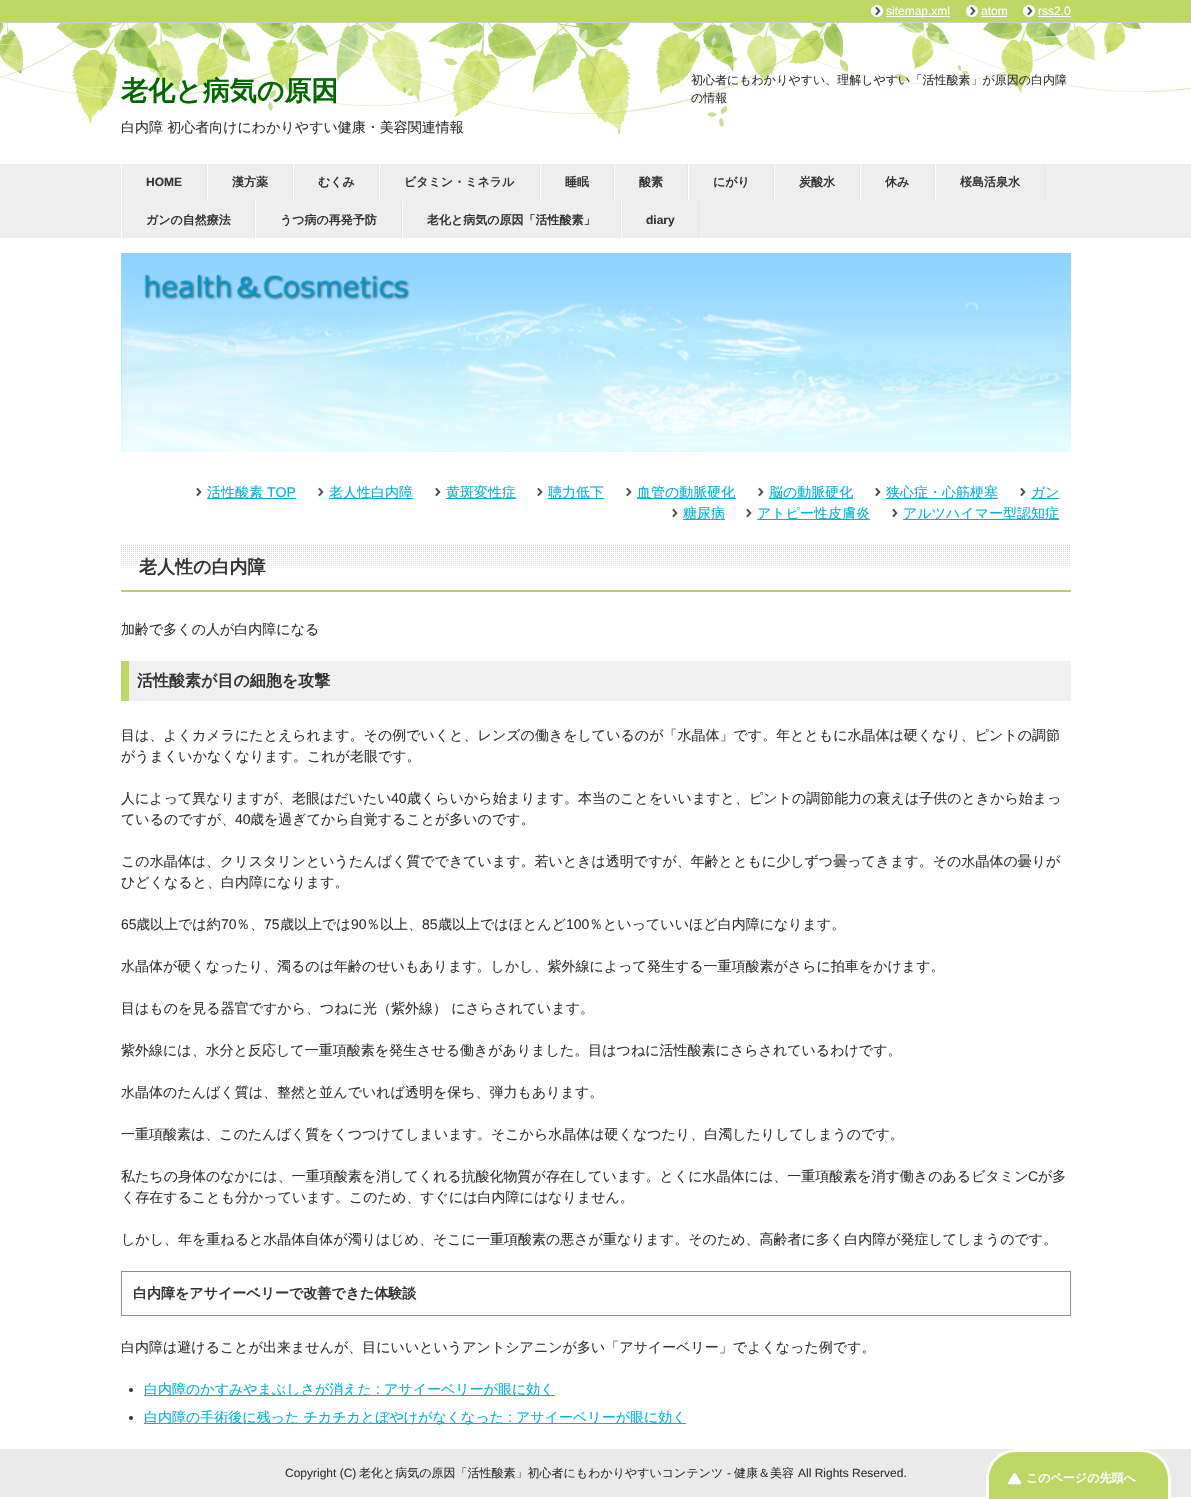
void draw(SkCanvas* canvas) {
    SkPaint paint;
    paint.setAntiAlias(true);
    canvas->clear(0xFFFFFFFF);
    paint.setColor(0xFFBCD764);
    canvas->drawRect(SkRect::MakeXYWH(0, 0, 1191, 22), paint);
    paint.setColor(0xFFCCCCCC);
    canvas->drawRect(SkRect::MakeXYWH(0, 22, 1191, 1), paint);
    canvas->drawImageRect(SkImages::DeferredFromEncodedData(SkData::MakeFromFileName("img1.png")), SkRect::MakeXYWH(871, 5, 12, 12), SkSamplingOptions());
    paint.setColor(0xFFFFFFFF);
    canvas->drawRect(SkRect::MakeXYWH(886, 16, 64, 1), paint);
    SkFont font1(fontMgr->matchFamilyStyle("Liberation Sans", SkFontStyle::Normal()), 12);
    font1.setSubpixel(true);
    canvas->drawString("sitemap.xml", 886, 15, font1, paint);
    canvas->drawImageRect(SkImages::DeferredFromEncodedData(SkData::MakeFromFileName("img1.png")), SkRect::MakeXYWH(966, 5, 12, 12), SkSamplingOptions());
    canvas->drawString("atom", 981, 15, font1, paint);
    canvas->drawRect(SkRect::MakeXYWH(981, 16, 26, 1), paint);
    canvas->drawImageRect(SkImages::DeferredFromEncodedData(SkData::MakeFromFileName("img1.png")), SkRect::MakeXYWH(1023, 5, 12, 12), SkSamplingOptions());
    canvas->drawString("rss2.0", 1038, 15, font1, paint);
    canvas->drawRect(SkRect::MakeXYWH(1038, 16, 33, 1), paint);
    canvas->drawImageRect(SkImages::DeferredFromEncodedData(SkData::MakeFromFileName("img2.png")), SkRect::MakeXYWH(0, 23, 1191, 113), SkSamplingOptions());
    SkFont font2(fontMgr->matchFamilyStyle("WenQuanYi Zen Hei", SkFontStyle::Bold()), 27);
    font2.setSubpixel(true);
    paint.setColor(0xFF006600);
    canvas->drawString("老化と病気の原因", 121, 100, font2, paint);
    SkFont font3(fontMgr->matchFamilyStyle("WenQuanYi Zen Hei", SkFontStyle(500, SkFontStyle::kNormal_Width, SkFontStyle::kUpright_Slant)), 14);
    font3.setSubpixel(true);
    paint.setColor(0xFF333333);
    canvas->drawString("白内障 初心者向けにわかりやすい健康・美容関連情報", 121, 132, font3, paint);
    SkFont font4(fontMgr->matchFamilyStyle("WenQuanYi Zen Hei", SkFontStyle(500, SkFontStyle::kNormal_Width, SkFontStyle::kUpright_Slant)), 12);
    font4.setSubpixel(true);
    canvas->drawString("初心者にもわかりやすい、理解しやすい「活性酸素」が原因の白内障", 691, 84, font4, paint);
    canvas->drawString("の情報", 691, 102, font4, paint);
    paint.setColor(0xFFEEEEEE);
    canvas->drawRect(SkRect::MakeXYWH(0, 164, 1191, 74), paint);
    paint.setColor(0xFFE5E5E5);
    canvas->drawRect(SkRect::MakeXYWH(206, 164, 1, 37), paint);
    SkFont font5(fontMgr->matchFamilyStyle("Liberation Sans", SkFontStyle::Bold()), 12);
    font5.setSubpixel(true);
    paint.setColor(0xFF333333);
    canvas->drawString("HOME", 146, 186, font5, paint);
    paint.setColor(0xFFE5E5E5);
    canvas->drawRect(SkRect::MakeXYWH(292, 164, 1, 37), paint);
    paint.setColor(0xFFFFFFFF);
    canvas->drawRect(SkRect::MakeXYWH(207, 164, 1, 37), paint);
    SkFont font6(fontMgr->matchFamilyStyle("WenQuanYi Zen Hei", SkFontStyle::Bold()), 12);
    font6.setSubpixel(true);
    paint.setColor(0xFF333333);
    canvas->drawString("漢方薬", 232, 186, font6, paint);
    paint.setColor(0xFFE5E5E5);
    canvas->drawRect(SkRect::MakeXYWH(378, 164, 1, 37), paint);
    paint.setColor(0xFFFFFFFF);
    canvas->drawRect(SkRect::MakeXYWH(293, 164, 1, 37), paint);
    paint.setColor(0xFF333333);
    canvas->drawString("むくみ", 318, 186, font6, paint);
    paint.setColor(0xFFE5E5E5);
    canvas->drawRect(SkRect::MakeXYWH(539, 164, 1, 37), paint);
    paint.setColor(0xFFFFFFFF);
    canvas->drawRect(SkRect::MakeXYWH(379, 164, 1, 37), paint);
    paint.setColor(0xFF333333);
    canvas->drawString("ビタミン・ミネラル", 404, 186, font6, paint);
    paint.setColor(0xFFE5E5E5);
    canvas->drawRect(SkRect::MakeXYWH(613, 164, 1, 37), paint);
    paint.setColor(0xFFFFFFFF);
    canvas->drawRect(SkRect::MakeXYWH(540, 164, 1, 37), paint);
    paint.setColor(0xFF333333);
    canvas->drawString("睡眠", 565, 186, font6, paint);
    paint.setColor(0xFFE5E5E5);
    canvas->drawRect(SkRect::MakeXYWH(687, 164, 1, 37), paint);
    paint.setColor(0xFFFFFFFF);
    canvas->drawRect(SkRect::MakeXYWH(614, 164, 1, 37), paint);
    paint.setColor(0xFF333333);
    canvas->drawString("酸素", 639, 186, font6, paint);
    paint.setColor(0xFFE5E5E5);
    canvas->drawRect(SkRect::MakeXYWH(773, 164, 1, 37), paint);
    paint.setColor(0xFFFFFFFF);
    canvas->drawRect(SkRect::MakeXYWH(688, 164, 1, 37), paint);
    paint.setColor(0xFF333333);
    canvas->drawString("にがり", 713, 186, font6, paint);
    paint.setColor(0xFFE5E5E5);
    canvas->drawRect(SkRect::MakeXYWH(859, 164, 1, 37), paint);
    paint.setColor(0xFFFFFFFF);
    canvas->drawRect(SkRect::MakeXYWH(774, 164, 1, 37), paint);
    paint.setColor(0xFF333333);
    canvas->drawString("炭酸水", 799, 186, font6, paint);
    paint.setColor(0xFFE5E5E5);
    canvas->drawRect(SkRect::MakeXYWH(934, 164, 1, 37), paint);
    paint.setColor(0xFFFFFFFF);
    canvas->drawRect(SkRect::MakeXYWH(860, 164, 1, 37), paint);
    paint.setColor(0xFF333333);
    canvas->drawString("休み", 885, 186, font6, paint);
    paint.setColor(0xFFE5E5E5);
    canvas->drawRect(SkRect::MakeXYWH(1044, 164, 1, 37), paint);
    paint.setColor(0xFFFFFFFF);
    canvas->drawRect(SkRect::MakeXYWH(935, 164, 1, 37), paint);
    paint.setColor(0xFF333333);
    canvas->drawString("桜島活泉水", 960, 186, font6, paint);
    paint.setColor(0xFFE5E5E5);
    canvas->drawRect(SkRect::MakeXYWH(254, 201, 1, 37), paint);
    paint.setColor(0xFFFFFFFF);
    canvas->drawRect(SkRect::MakeXYWH(121, 164, 1, 74), paint);
    paint.setColor(0xFF333333);
    canvas->drawString("ガンの自然療法", 146, 224, font6, paint);
    paint.setColor(0xFFE5E5E5);
    canvas->drawRect(SkRect::MakeXYWH(401, 201, 1, 37), paint);
    paint.setColor(0xFFFFFFFF);
    canvas->drawRect(SkRect::MakeXYWH(255, 201, 1, 37), paint);
    paint.setColor(0xFF333333);
    canvas->drawString("うつ病の再発予防", 280, 224, font6, paint);
    paint.setColor(0xFFE5E5E5);
    canvas->drawRect(SkRect::MakeXYWH(620, 201, 1, 37), paint);
    paint.setColor(0xFFFFFFFF);
    canvas->drawRect(SkRect::MakeXYWH(402, 201, 1, 37), paint);
    paint.setColor(0xFF333333);
    canvas->drawString("老化と病気の原因「活性酸素」", 427, 224, font6, paint);
    paint.setColor(0xFFE5E5E5);
    canvas->drawRect(SkRect::MakeXYWH(698, 201, 1, 37), paint);
    paint.setColor(0xFFFFFFFF);
    canvas->drawRect(SkRect::MakeXYWH(621, 201, 1, 37), paint);
    paint.setColor(0xFF333333);
    canvas->drawString("diary", 646, 224, font5, paint);
    canvas->drawImageRect(SkImages::DeferredFromEncodedData(SkData::MakeFromFileName("img3.png")), SkRect::MakeXYWH(121, 253, 950, 199), SkSamplingOptions());
    canvas->drawImageRect(SkImages::DeferredFromEncodedData(SkData::MakeFromFileName("img4.png")), SkRect::MakeXYWH(196, 487, 6, 10), SkSamplingOptions());
    paint.setColor(0xFF00B2D5);
    canvas->drawRect(SkRect::MakeXYWH(207, 498, 89, 1), paint);
    canvas->drawString("活性酸素", 207, 497, font3, paint);
    SkFont font7(fontMgr->matchFamilyStyle("Liberation Sans", SkFontStyle::Normal()), 14);
    font7.setSubpixel(true);
    canvas->drawString("TOP", 267, 497, font7, paint);
    canvas->drawImageRect(SkImages::DeferredFromEncodedData(SkData::MakeFromFileName("img4.png")), SkRect::MakeXYWH(318, 487, 6, 10), SkSamplingOptions());
    canvas->drawRect(SkRect::MakeXYWH(329, 498, 84, 1), paint);
    canvas->drawString("老人性白内障", 329, 497, font3, paint);
    canvas->drawImageRect(SkImages::DeferredFromEncodedData(SkData::MakeFromFileName("img4.png")), SkRect::MakeXYWH(435, 487, 6, 10), SkSamplingOptions());
    canvas->drawRect(SkRect::MakeXYWH(446, 498, 70, 1), paint);
    canvas->drawString("黄斑変性症", 446, 497, font3, paint);
    canvas->drawImageRect(SkImages::DeferredFromEncodedData(SkData::MakeFromFileName("img4.png")), SkRect::MakeXYWH(537, 487, 6, 10), SkSamplingOptions());
    canvas->drawRect(SkRect::MakeXYWH(548, 498, 56, 1), paint);
    canvas->drawString("聴力低下", 548, 497, font3, paint);
    canvas->drawImageRect(SkImages::DeferredFromEncodedData(SkData::MakeFromFileName("img4.png")), SkRect::MakeXYWH(626, 487, 6, 10), SkSamplingOptions());
    canvas->drawRect(SkRect::MakeXYWH(637, 498, 99, 1), paint);
    canvas->drawString("血管の動脈硬化", 637, 497, font3, paint);
    canvas->drawImageRect(SkImages::DeferredFromEncodedData(SkData::MakeFromFileName("img4.png")), SkRect::MakeXYWH(758, 487, 6, 10), SkSamplingOptions());
    canvas->drawRect(SkRect::MakeXYWH(769, 498, 84, 1), paint);
    canvas->drawString("脳の動脈硬化", 769, 497, font3, paint);
    canvas->drawImageRect(SkImages::DeferredFromEncodedData(SkData::MakeFromFileName("img4.png")), SkRect::MakeXYWH(875, 487, 6, 10), SkSamplingOptions());
    canvas->drawRect(SkRect::MakeXYWH(886, 498, 112, 1), paint);
    canvas->drawString("狭心症・心筋梗塞", 886, 497, font3, paint);
    canvas->drawImageRect(SkImages::DeferredFromEncodedData(SkData::MakeFromFileName("img4.png")), SkRect::MakeXYWH(1020, 487, 6, 10), SkSamplingOptions());
    canvas->drawRect(SkRect::MakeXYWH(1031, 498, 28, 1), paint);
    canvas->drawString("ガン", 1031, 497, font3, paint);
    canvas->drawImageRect(SkImages::DeferredFromEncodedData(SkData::MakeFromFileName("img4.png")), SkRect::MakeXYWH(672, 508, 6, 10), SkSamplingOptions());
    canvas->drawRect(SkRect::MakeXYWH(683, 519, 42, 1), paint);
    canvas->drawString("糖尿病", 683, 518, font3, paint);
    canvas->drawImageRect(SkImages::DeferredFromEncodedData(SkData::MakeFromFileName("img4.png")), SkRect::MakeXYWH(746, 508, 6, 10), SkSamplingOptions());
    canvas->drawRect(SkRect::MakeXYWH(757, 519, 113, 1), paint);
    canvas->drawString("アトピー性皮膚炎", 757, 518, font3, paint);
    canvas->drawImageRect(SkImages::DeferredFromEncodedData(SkData::MakeFromFileName("img4.png")), SkRect::MakeXYWH(892, 508, 6, 10), SkSamplingOptions());
    canvas->drawRect(SkRect::MakeXYWH(903, 519, 156, 1), paint);
    canvas->drawString("アルツハイマー型認知症", 903, 518, font3, paint);
    canvas->drawImageRect(SkImages::DeferredFromEncodedData(SkData::MakeFromFileName("img5.png")), SkRect::MakeXYWH(121, 545, 949, 23), SkSamplingOptions());
    paint.setColor(0xFFB3D465);
    canvas->drawRect(SkRect::MakeXYWH(121, 590, 950, 2), paint);
    SkFont font8(fontMgr->matchFamilyStyle("WenQuanYi Zen Hei", SkFontStyle::Bold()), 18);
    font8.setSubpixel(true);
    paint.setColor(0xFF333333);
    canvas->drawString("老人性の白内障", 139, 573, font8, paint);
    canvas->drawString("加齢で多くの人が白内障になる", 121, 634, font3, paint);
    paint.setColor(0xFFEFF0EF);
    canvas->drawRect(SkRect::MakeXYWH(129, 661, 942, 40), paint);
    paint.setColor(0xFFBCD764);
    canvas->drawRect(SkRect::MakeXYWH(121, 661, 8, 40), paint);
    SkFont font9(fontMgr->matchFamilyStyle("WenQuanYi Zen Hei", SkFontStyle::Bold()), 16);
    font9.setSubpixel(true);
    paint.setColor(0xFF333333);
    canvas->drawString("活性酸素が目の細胞を攻撃", 137, 686, font9, paint);
    canvas->drawString("目は、よくカメラにたとえられます。その例でいくと、レンズの働きをしているのが「水晶体」です。年とともに水晶体は硬くなり、ピントの調節", 121, 740, font3, paint);
    canvas->drawString("がうまくいかなくなります。これが老眼です。", 121, 761, font3, paint);
    canvas->drawString("人によって異なりますが、老眼はだいたい", 121, 803, font3, paint);
    canvas->drawString("40", 391, 803, font7, paint);
    canvas->drawString("歳くらいから始まります。本当のことをいいますと、ピントの調節能力の衰えは子供のときから始まっ", 407, 803, font3, paint);
    canvas->drawString("ているのですが、", 121, 824, font3, paint);
    canvas->drawString("40", 235, 824, font7, paint);
    canvas->drawString("歳を過ぎてから自覚することが多いのです。", 250, 824, font3, paint);
    canvas->drawString("この水晶体は、クリスタリンというたんばく質でできています。若いときは透明ですが、年齢とともに少しずつ曇ってきます。その水晶体の曇りが", 121, 866, font3, paint);
    canvas->drawString("ひどくなると、白内障になります。", 121, 887, font3, paint);
    canvas->drawString("65", 121, 929, font7, paint);
    canvas->drawString("歳以上では約", 136, 929, font3, paint);
    canvas->drawString("70", 221, 929, font7, paint);
    canvas->drawString("％、", 236, 929, font3, paint);
    canvas->drawString("75", 264, 929, font7, paint);
    canvas->drawString("歳以上では", 280, 929, font3, paint);
    canvas->drawString("90", 351, 929, font7, paint);
    canvas->drawString("％以上、", 366, 929, font3, paint);
    canvas->drawString("85", 422, 929, font7, paint);
    canvas->drawString("歳以上ではほとんど", 438, 929, font3, paint);
    canvas->drawString("100", 566, 929, font7, paint);
    canvas->drawString("％といっていいほど白内障になります。", 589, 929, font3, paint);
    canvas->drawString("水晶体が硬くなったり、濁るのは年齢のせいもあります。しかし、紫外線によって発生する一重項酸素がさらに拍車をかけます。", 121, 971, font3, paint);
    canvas->drawString("目はものを見る器官ですから、つねに光（紫外線） にさらされています。", 121, 1013, font3, paint);
    canvas->drawString("紫外線には、水分と反応して一重項酸素を発生させる働きがありました。目はつねに活性酸素にさらされているわけです。", 121, 1055, font3, paint);
    canvas->drawString("水晶体のたんばく質は、整然と並んでいれば透明を保ち、弾力もあります。", 121, 1097, font3, paint);
    canvas->drawString("一重項酸素は、このたんばく質をくつつけてしまいます。そこから水晶体は硬くなつたり、白濁したりしてしまうのです。", 121, 1139, font3, paint);
    canvas->drawString("私たちの身体のなかには、一重項酸素を消してくれる抗酸化物質が存在しています。とくに水晶体には、一重項酸素を消す働きのあるビタミン", 121, 1181, font3, paint);
    canvas->drawString("C", 1028, 1181, font7, paint);
    canvas->drawString("が多", 1038, 1181, font3, paint);
    canvas->drawString("く存在することも分かっています。このため、すぐには白内障にはなりません。", 121, 1202, font3, paint);
    canvas->drawString("しかし、年を重ねると水晶体自体が濁りはじめ、そこに一重項酸素の悪さが重なります。そのため、高齢者に多く白内障が発症してしまうのです。", 121, 1244, font3, paint);
    paint.setStyle(SkPaint::kStroke_Style);
    paint.setStrokeWidth(1);
    paint.setColor(0xFF8E8E8E);
    canvas->drawRect(SkRect::MakeXYWH(121.5f, 1271.5f, 949, 44), paint);
    SkFont font10(fontMgr->matchFamilyStyle("WenQuanYi Zen Hei", SkFontStyle::Bold()), 14);
    font10.setSubpixel(true);
    paint.setStyle(SkPaint::kFill_Style);
    paint.setColor(0xFF333333);
    canvas->drawString("白内障をアサイーベリーで改善できた体験談", 133, 1298, font10, paint);
    canvas->drawString("白内障は避けることが出来ませんが、目にいいというアントシアニンが多い「アサイーベリー」でよくなった例です。", 121, 1352, font3, paint);
    canvas->drawCircle(131, 1390, 2, paint);
    paint.setColor(0xFF00B2D5);
    canvas->drawRect(SkRect::MakeXYWH(144, 1395, 411, 1), paint);
    canvas->drawString("白内障のかすみやまぶしさが消えた", 144, 1394, font3, paint);
    canvas->drawString(":", 376, 1394, font7, paint);
    canvas->drawString("アサイーベリーが眼に効く", 384, 1394, font3, paint);
    paint.setColor(0xFF333333);
    canvas->drawCircle(131, 1418, 2, paint);
    paint.setColor(0xFF00B2D5);
    canvas->drawRect(SkRect::MakeXYWH(144, 1423, 542, 1), paint);
    canvas->drawString("白内障の手術後に残った チカチカとぼやけがなくなった", 144, 1422, font3, paint);
    canvas->drawString(":", 508, 1422, font7, paint);
    canvas->drawString("アサイーベリーが眼に効く", 516, 1422, font3, paint);
    paint.setColor(0xFFEAEAEA);
    canvas->drawRect(SkRect::MakeXYWH(0, 1449, 1191, 48), paint);
    paint.setColor(0xFF333333);
    canvas->drawString("Copyright (C)", 285, 1477, font1, paint);
    canvas->drawString("老化と病気の原因「活性酸素」初心者にもわかりやすいコンテンツ", 359, 1477, font4, paint);
    canvas->drawString("-", 727, 1477, font1, paint);
    canvas->drawString("健康＆美容", 734, 1477, font4, paint);
    canvas->drawString("All Rights Reserved.", 798, 1477, font1, paint);
    paint.setColor(0xFFBCD764);
    canvas->drawPath(SkPathBuilder().moveTo(1016, 1449).lineTo(1141, 1449).cubicTo(1157.5f, 1449, 1171, 1462.5f, 1171, 1479).lineTo(1171, 1499).lineTo(986, 1499).lineTo(986, 1479).cubicTo(986, 1462.5f, 999.5f, 1449, 1016, 1449).close().detach(), paint);
    canvas->drawImageRect(SkImages::DeferredFromEncodedData(SkData::MakeFromFileName("img6.png")), SkRect::MakeXYWH(1008, 1473, 14, 12), SkSamplingOptions());
    paint.setColor(0xFFFFFFFF);
    canvas->drawPath(SkPathBuilder(SkPathFillType::kEvenOdd).moveTo(1016, 1449).lineTo(1141, 1449).cubicTo(1158, 1449, 1171, 1462, 1171, 1479).lineTo(1171, 1499).lineTo(986, 1499).lineTo(986, 1479).cubicTo(986, 1462, 999, 1449, 1016, 1449).close().moveTo(1016, 1452).lineTo(1141, 1452).cubicTo(1156, 1452, 1168, 1464, 1168, 1479).lineTo(1168, 1499).lineTo(989, 1499).lineTo(989, 1479).cubicTo(989, 1464, 1001, 1452, 1016, 1452).close().detach(), paint);
    canvas->drawString("このページの先頭へ", 1026, 1482, font6, paint);
}
